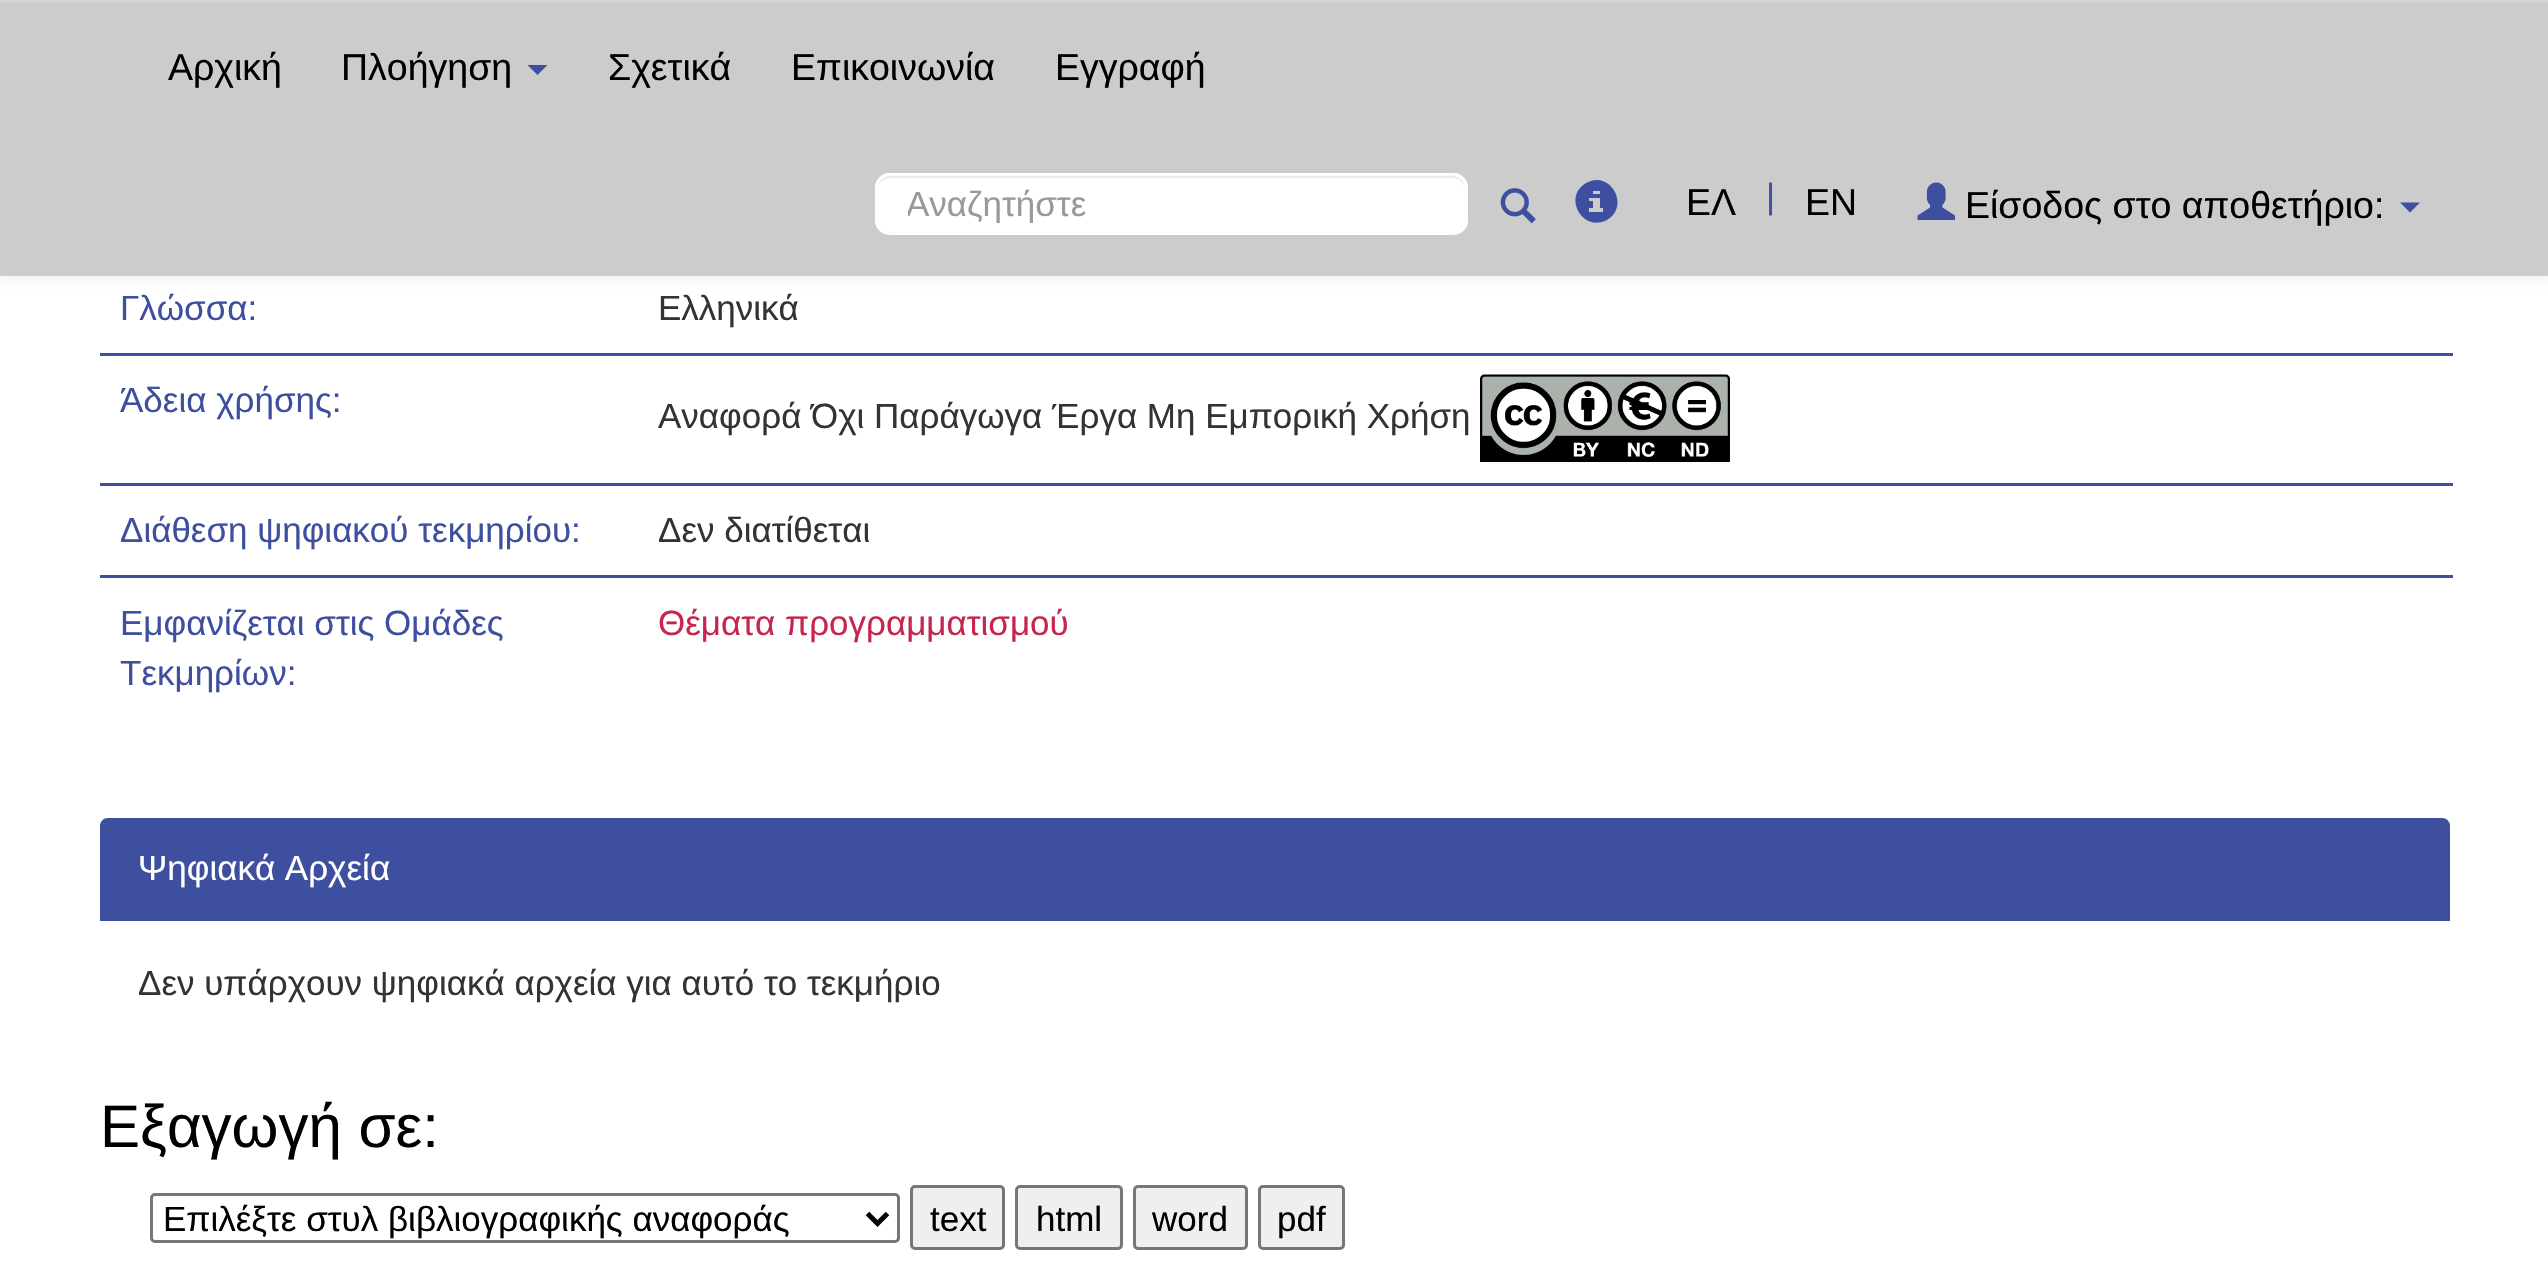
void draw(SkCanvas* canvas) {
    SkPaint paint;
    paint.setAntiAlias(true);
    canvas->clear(0xFFFFFFFF);
    paint.setColor(0x12000000);
    paint.setMaskFilter(SkMaskFilter::MakeBlur(kNormal_SkBlurStyle, 6));
    canvas->drawRect(SkRect::MakeXYWH(0, 3, 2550, 275), paint);
    paint.setMaskFilter(nullptr);
    paint.setColor(0xFFCCCCCC);
    canvas->drawRect(SkRect::MakeXYWH(0, 3, 2548, 273), paint);
    paint.setColor(0xFFD4D4D4);
    canvas->drawRect(SkRect::MakeXYWH(0, 0, 2548, 3), paint);
    SkFont font1(fontMgr->matchFamilyStyle("Liberation Sans", SkFontStyle::Normal()), 37.5f);
    font1.setSubpixel(true);
    paint.setColor(0xFF000000);
    canvas->drawString("Αρχική", 168, 80, font1, paint);
    canvas->drawString("Πλοήγηση", 341, 80, font1, paint);
    paint.setColor(0xFF3E4FA0);
    canvas->drawPath(SkPathBuilder().moveTo(527.5f, 65).lineTo(547.5f, 65).lineTo(537.5f, 75).close().detach(), paint);
    paint.setColor(0xFF000000);
    canvas->drawString("Σχετικά", 608, 80, font1, paint);
    canvas->drawString("Επικοινωνία", 791, 80, font1, paint);
    canvas->drawString("Εγγραφή", 1055, 80, font1, paint);
    paint.setColor(0xFFFFFFFF);
    canvas->drawRoundRect(SkRect::MakeXYWH(875, 173, 593, 62), 15, 15, paint);
    paint.setColor(0xFFECECEC);
    canvas->drawPath(SkPathBuilder().moveTo(890, 178).lineTo(1452, 178).cubicTo(1459, 178, 1465, 183, 1465, 190).lineTo(1465, 188).cubicTo(1465, 181, 1459, 175, 1452, 175).lineTo(891, 175).cubicTo(884, 175, 878, 181, 878, 188).lineTo(878, 190).cubicTo(878, 183, 883, 178, 890, 178).close().detach(), paint);
    paint.setStyle(SkPaint::kStroke_Style);
    paint.setStrokeWidth(3);
    paint.setColor(0xFFFFFFFF);
    canvas->drawRoundRect(SkRect::MakeXYWH(876.5f, 174.5f, 590, 59), 13.5f, 13.5f, paint);
    canvas->save();
    canvas->clipRect(SkRect::MakeXYWH(908, 183, 527, 40));
    SkFont font2(fontMgr->matchFamilyStyle("Liberation Sans", SkFontStyle::Normal()), 35);
    font2.setSubpixel(true);
    paint.setStyle(SkPaint::kFill_Style);
    paint.setColor(0xFF999999);
    canvas->drawString("Αναζητήστε", 906, 216, font2, paint);
    canvas->restore();
    canvas->drawImageRect(SkImages::DeferredFromEncodedData(SkData::MakeFromFileName("img1.png")), SkRect::MakeXYWH(1500, 188, 36, 35), SkSamplingOptions());
    paint.setColor(0xFF3E4FA0);
    canvas->drawPath(SkPathBuilder().moveTo(1586, 183).cubicTo(1610, 169, 1631, 206, 1607, 220).cubicTo(1583, 233, 1562, 197, 1586, 183).close().moveTo(1593, 191).lineTo(1593, 194).lineTo(1600, 194).lineTo(1600, 191).close().moveTo(1589, 198).lineTo(1589, 201).lineTo(1593, 201).lineTo(1593, 208).lineTo(1589, 208).lineTo(1589, 212).lineTo(1603, 212).lineTo(1603, 208).lineTo(1600, 208).lineTo(1600, 198).close().detach(), paint);
    paint.setColor(0xFF000000);
    canvas->drawString("ΕΛ", 1686, 215, font1, paint);
    paint.setColor(0xFF3E4FA0);
    canvas->drawString("|", 1766, 208, font2, paint);
    paint.setColor(0xFF000000);
    canvas->drawString("EN", 1805, 215, font1, paint);
    canvas->drawImageRect(SkImages::DeferredFromEncodedData(SkData::MakeFromFileName("img2.png")), SkRect::MakeXYWH(1917, 182, 38, 38), SkSamplingOptions());
    canvas->drawString("Είσοδος στο αποθετήριο:", 1965, 218, font1, paint);
    paint.setColor(0xFF3E4FA0);
    canvas->drawPath(SkPathBuilder().moveTo(2400, 202.5f).lineTo(2420, 202.5f).lineTo(2410, 212.5f).close().detach(), paint);
    canvas->drawString("Γλώσσα:", 120, 320, font2, paint);
    paint.setColor(0xFF333333);
    canvas->drawString("Ελληνικά", 658, 320, font2, paint);
    paint.setColor(0xFF3E4FA0);
    canvas->drawString("Άδεια χρήσης:", 120, 412, font2, paint);
    canvas->drawRect(SkRect::MakeXYWH(100, 353, 2353, 3), paint);
    paint.setColor(0xFF333333);
    canvas->drawString("Αναφορά Όχι Παράγωγα Έργα Μη Εμπορική Χρήση", 658, 428, font2, paint);
    canvas->drawImageRect(SkImages::DeferredFromEncodedData(SkData::MakeFromFileName("img3.png")), SkRect::MakeXYWH(1480, 374, 250, 88), SkSamplingOptions());
    paint.setColor(0xFF3E4FA0);
    canvas->drawString("Διάθεση ψηφιακού τεκμηρίου:", 120, 542, font2, paint);
    canvas->drawRect(SkRect::MakeXYWH(100, 483, 2353, 3), paint);
    paint.setColor(0xFF333333);
    canvas->drawString("Δεν διατίθεται", 658, 542, font2, paint);
    paint.setColor(0xFF3E4FA0);
    canvas->drawString("Εμφανίζεται στις Ομάδες", 120, 635, font2, paint);
    canvas->drawString("Τεκμηρίων:", 120, 685, font2, paint);
    canvas->drawRect(SkRect::MakeXYWH(100, 575, 2353, 3), paint);
    paint.setColor(0xFFC7254E);
    canvas->drawString("Θέματα προγραμματισμού", 658, 635, font2, paint);
    paint.setColor(0xFF3E4FA0);
    canvas->drawPath(SkPathBuilder().moveTo(108, 818).lineTo(2442, 818).cubicTo(2446.5f, 818, 2450, 821.5f, 2450, 826).lineTo(2450, 920).lineTo(100, 920).lineTo(100, 826).cubicTo(100, 821.5f, 103.5f, 818, 108, 818).close().detach(), paint);
    canvas->drawRect(SkRect::MakeXYWH(100, 920, 2350, 1), paint);
    paint.setColor(0xFFFFFFFF);
    canvas->drawString("Ψηφιακά Αρχεία", 138, 880, font2, paint);
    paint.setColor(0xFF333333);
    canvas->drawString("Δεν υπάρχουν ψηφιακά αρχεία για αυτό το τεκμήριο", 138, 995, font2, paint);
    SkFont font3(fontMgr->matchFamilyStyle("Liberation Sans", SkFontStyle::Normal()), 60);
    font3.setSubpixel(true);
    paint.setColor(0xFF000000);
    canvas->drawString("Εξαγωγή σε:", 100, 1147, font3, paint);
    paint.setStyle(SkPaint::kStroke_Style);
    paint.setColor(0xFF767676);
    canvas->drawRoundRect(SkRect::MakeXYWH(151.5f, 1194.5f, 747, 47), 3.5f, 3.5f, paint);
    paint.setStrokeWidth(5);
    paint.setColor(0xFF000000);
    canvas->drawPath(SkPathBuilder().moveTo(867.5f, 1213.5f).lineTo(877.5f, 1223.5f).lineTo(887.5f, 1213.5f).detach(), paint);
    paint.setStyle(SkPaint::kFill_Style);
    canvas->drawString("Επιλέξτε στυλ βιβλιογραφικής αναφοράς", 163, 1231, font2, paint);
    paint.setColor(0xFFEFEFEF);
    canvas->drawRoundRect(SkRect::MakeXYWH(911.5f, 1186.5f, 92, 62), 3.5f, 3.5f, paint);
    paint.setStyle(SkPaint::kStroke_Style);
    paint.setStrokeWidth(3);
    paint.setColor(0xFF767676);
    canvas->drawRoundRect(SkRect::MakeXYWH(911.5f, 1186.5f, 92, 62), 3.5f, 3.5f, paint);
    paint.setStyle(SkPaint::kFill_Style);
    paint.setColor(0xFF000000);
    canvas->drawString("text", 930, 1231, font2, paint);
    paint.setColor(0xFFEFEFEF);
    canvas->drawRoundRect(SkRect::MakeXYWH(1016.5f, 1186.5f, 105, 62), 3.5f, 3.5f, paint);
    paint.setStyle(SkPaint::kStroke_Style);
    paint.setColor(0xFF767676);
    canvas->drawRoundRect(SkRect::MakeXYWH(1016.5f, 1186.5f, 105, 62), 3.5f, 3.5f, paint);
    paint.setStyle(SkPaint::kFill_Style);
    paint.setColor(0xFF000000);
    canvas->drawString("html", 1036, 1231, font2, paint);
    paint.setColor(0xFFEFEFEF);
    canvas->drawRoundRect(SkRect::MakeXYWH(1134.5f, 1186.5f, 112, 62), 3.5f, 3.5f, paint);
    paint.setStyle(SkPaint::kStroke_Style);
    paint.setColor(0xFF767676);
    canvas->drawRoundRect(SkRect::MakeXYWH(1134.5f, 1186.5f, 112, 62), 3.5f, 3.5f, paint);
    paint.setStyle(SkPaint::kFill_Style);
    paint.setColor(0xFF000000);
    canvas->drawString("word", 1152, 1231, font2, paint);
    paint.setColor(0xFFEFEFEF);
    canvas->drawRoundRect(SkRect::MakeXYWH(1259.5f, 1186.5f, 84, 62), 3.5f, 3.5f, paint);
    paint.setStyle(SkPaint::kStroke_Style);
    paint.setColor(0xFF767676);
    canvas->drawRoundRect(SkRect::MakeXYWH(1259.5f, 1186.5f, 84, 62), 3.5f, 3.5f, paint);
    paint.setStyle(SkPaint::kFill_Style);
    paint.setColor(0xFF000000);
    canvas->drawString("pdf", 1277, 1231, font2, paint);
}
